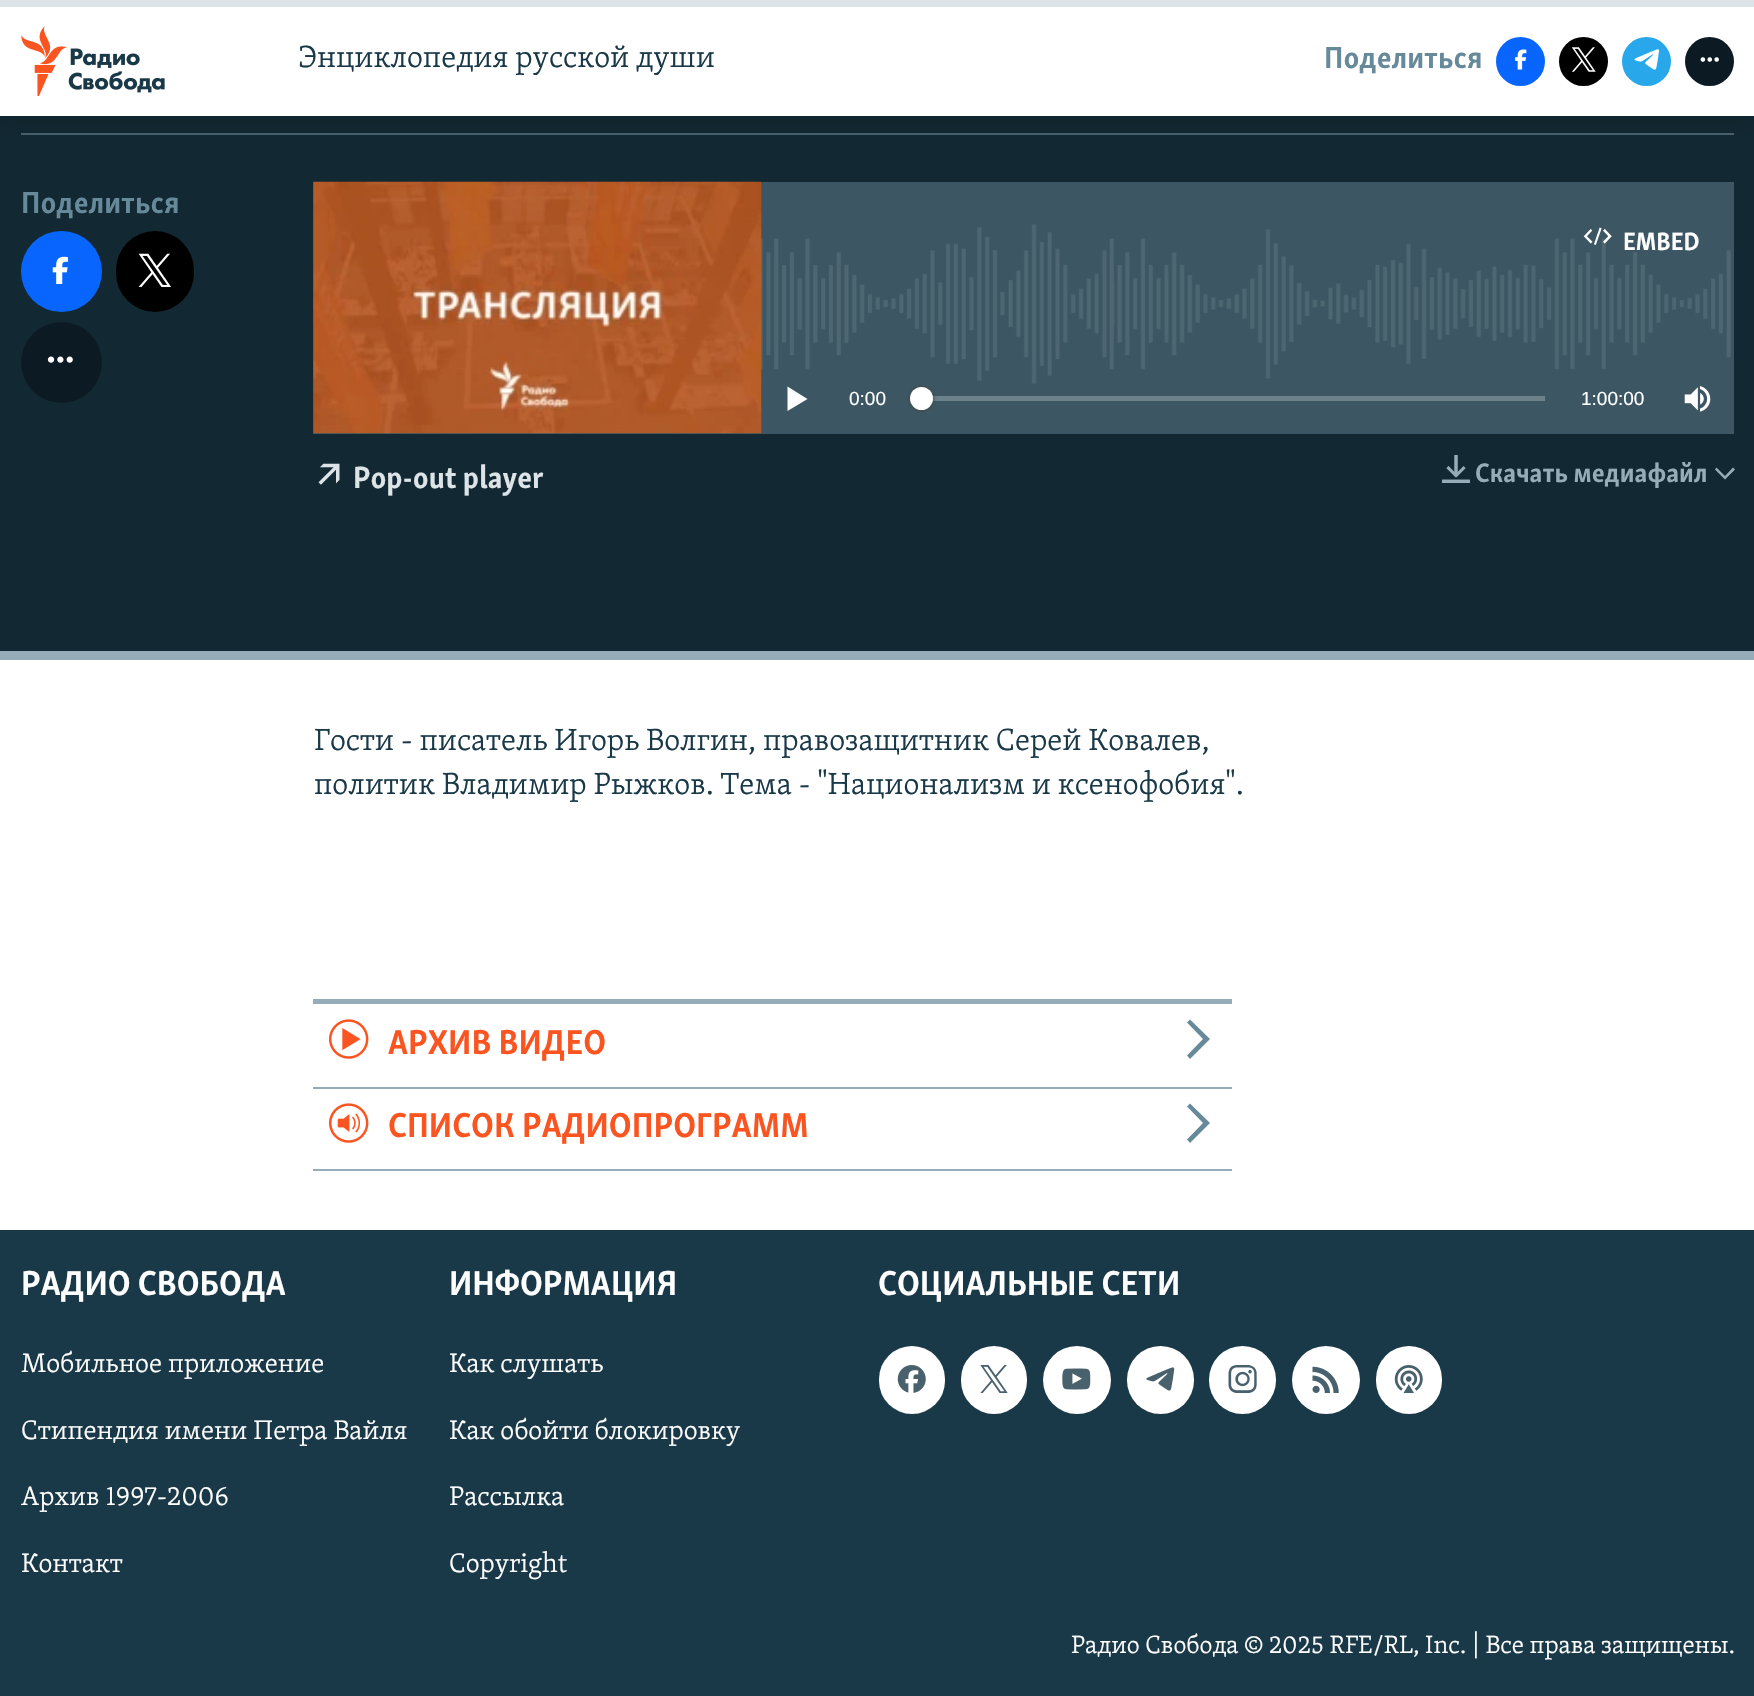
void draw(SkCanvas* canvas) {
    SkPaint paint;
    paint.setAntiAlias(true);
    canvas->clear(0xFFFFFFFF);
    paint.setColor(0xFF122832);
    canvas->drawRect(SkRect::MakeXYWH(0, 116, 1754, 535), paint);
    paint.setColor(0xFF48616D);
    canvas->drawRect(SkRect::MakeXYWH(21, 133, 1713, 2), paint);
    paint.setColor(0x1A000000);
    paint.setMaskFilter(SkMaskFilter::MakeBlur(kNormal_SkBlurStyle, 9));
    canvas->drawRect(SkRect::MakeXYWH(0, 9, 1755, 115), paint);
    paint.setMaskFilter(nullptr);
    paint.setColor(0xFFFFFFFF);
    canvas->drawRect(SkRect::MakeXYWH(0, 7, 1754, 109), paint);
    paint.setColor(0xFFDCE4E8);
    canvas->drawRect(SkRect::MakeXYWH(0, 0, 1754, 7), paint);
    canvas->drawImageRect(SkImages::DeferredFromEncodedData(SkData::MakeFromFileName("img1.png")), SkRect::MakeXYWH(21, 26, 144, 70), SkSamplingOptions());
    SkFont font1(fontMgr->matchFamilyStyle("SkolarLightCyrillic", SkFontStyle(300, SkFontStyle::kNormal_Width, SkFontStyle::kUpright_Slant)), 31.5f);
    font1.setSubpixel(true);
    paint.setColor(0xFF1A3948);
    canvas->drawString("Энциклопедия русской души", 298, 67, font1, paint);
    SkFont font2(fontMgr->matchFamilyStyle("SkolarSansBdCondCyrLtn", SkFontStyle::Bold()), 31.5f);
    font2.setSubpixel(true);
    paint.setColor(0xFF678A9B);
    canvas->drawString("Поделиться", 1324, 68, font2, paint);
    paint.setColor(0xFF0866FF);
    canvas->drawCircle(1520.5f, 61.5f, 24.5f, paint);
    canvas->drawImageRect(SkImages::DeferredFromEncodedData(SkData::MakeFromFileName("img2.png")), SkRect::MakeXYWH(1515, 49, 12, 21), SkSamplingOptions());
    paint.setColor(0xFF000000);
    canvas->drawCircle(1583.5f, 61.5f, 24.5f, paint);
    canvas->drawImageRect(SkImages::DeferredFromEncodedData(SkData::MakeFromFileName("img3.png")), SkRect::MakeXYWH(1571, 47, 25, 25), SkSamplingOptions());
    paint.setColor(0xFF28A8EA);
    canvas->drawCircle(1646.5f, 61.5f, 24.5f, paint);
    canvas->drawImageRect(SkImages::DeferredFromEncodedData(SkData::MakeFromFileName("img4.png")), SkRect::MakeXYWH(1634, 49, 25, 21), SkSamplingOptions());
    paint.setColor(0xFF0C1B23);
    canvas->drawCircle(1709.5f, 61.5f, 24.5f, paint);
    canvas->drawImageRect(SkImages::DeferredFromEncodedData(SkData::MakeFromFileName("img5.png")), SkRect::MakeXYWH(1700, 57, 19, 5), SkSamplingOptions());
    paint.setColor(0xFF95ADB9);
    canvas->drawRect(SkRect::MakeXYWH(0, 651, 1754, 9), paint);
    paint.setColor(0xFF678A9B);
    canvas->drawString("Поделиться", 21, 213, font2, paint);
    paint.setColor(0xFF0866FF);
    canvas->drawCircle(61.5f, 271.5f, 40.5f, paint);
    canvas->drawImageRect(SkImages::DeferredFromEncodedData(SkData::MakeFromFileName("img6.png")), SkRect::MakeXYWH(52, 256, 16, 28), SkSamplingOptions());
    paint.setColor(0xFF000000);
    canvas->drawRoundRect(SkRect::MakeXYWH(116, 231, 78, 81), 39, 39, paint);
    canvas->drawImageRect(SkImages::DeferredFromEncodedData(SkData::MakeFromFileName("img7.png")), SkRect::MakeXYWH(138, 253, 33, 34), SkSamplingOptions());
    paint.setColor(0xFF0C1B23);
    canvas->drawCircle(61.5f, 362.5f, 40.5f, paint);
    canvas->drawImageRect(SkImages::DeferredFromEncodedData(SkData::MakeFromFileName("img8.png")), SkRect::MakeXYWH(47, 356, 26, 7), SkSamplingOptions());
    paint.setColor(0xFF3C5763);
    canvas->drawRect(SkRect::MakeXYWH(313, 182, 1421, 252), paint);
    canvas->drawImageRect(SkImages::DeferredFromEncodedData(SkData::MakeFromFileName("img9.png")), SkRect::MakeXYWH(313, 224, 1418, 160), SkSamplingOptions());
    canvas->drawImageRect(SkImages::DeferredFromEncodedData(SkData::MakeFromFileName("img10.png")), SkRect::MakeXYWH(313, 181, 449, 253), SkSamplingOptions());
    canvas->drawImageRect(SkImages::DeferredFromEncodedData(SkData::MakeFromFileName("img11.png")), SkRect::MakeXYWH(1583, 227, 29, 18), SkSamplingOptions());
    SkFont font3(fontMgr->matchFamilyStyle("SkolarSansBdCondCyrLtn", SkFontStyle::Bold()), 25.6f);
    font3.setSubpixel(true);
    paint.setColor(0xFFFFFFFF);
    canvas->drawString("EMBED", 1623, 250, font3, paint);
    canvas->drawPath(SkPathBuilder().moveTo(787.5f, 411).lineTo(807.5f, 399).lineTo(787.5f, 386.5f).close().detach(), paint);
    SkFont font4(fontMgr->matchFamilyStyle("Liberation Sans", SkFontStyle::Normal()), 19);
    font4.setSubpixel(true);
    canvas->drawString("0:00", 849, 405, font4, paint);
    paint.setColor(0xFF6D818A);
    canvas->drawRect(SkRect::MakeXYWH(932, 396, 613, 5), paint);
    paint.setColor(0xFF414144);
    paint.setMaskFilter(SkMaskFilter::MakeBlur(kNormal_SkBlurStyle, 2.5f));
    canvas->drawRoundRect(SkRect::MakeXYWH(910, 387, 23, 23), 11.5f, 11.5f, paint);
    paint.setMaskFilter(nullptr);
    paint.setColor(0xFFFFFFFF);
    canvas->drawCircle(921.5f, 398.5f, 11.5f, paint);
    canvas->drawString("1:00:00", 1581, 405, font4, paint);
    canvas->drawImageRect(SkImages::DeferredFromEncodedData(SkData::MakeFromFileName("img12.png")), SkRect::MakeXYWH(1684, 386, 27, 26), SkSamplingOptions());
    canvas->drawImageRect(SkImages::DeferredFromEncodedData(SkData::MakeFromFileName("img13.png")), SkRect::MakeXYWH(318, 463, 22, 22), SkSamplingOptions());
    paint.setColor(0xFFDCE4E8);
    canvas->drawString("Pop-out player", 353, 488, font2, paint);
    canvas->drawImageRect(SkImages::DeferredFromEncodedData(SkData::MakeFromFileName("img14.png")), SkRect::MakeXYWH(1442, 455, 28, 28), SkSamplingOptions());
    SkFont font5(fontMgr->matchFamilyStyle("SkolarSansBdCondCyrLtn", SkFontStyle::Bold()), 27.5f);
    font5.setSubpixel(true);
    paint.setColor(0xFF95ADB9);
    canvas->drawString("Скачать медиафайл", 1475, 482, font5, paint);
    canvas->drawPath(SkPathBuilder().moveTo(1715, 469.5f).lineTo(1725, 479.5f).lineTo(1735, 469.5f).lineTo(1733, 467.5f).lineTo(1725, 476).lineTo(1716.5f, 467.5f).close().detach(), paint);
    paint.setColor(0xFF1A3948);
    canvas->drawString("Гости - писатель Игорь Волгин, правозащитник Серей Ковалев,", 314, 750, font1, paint);
    canvas->drawString("политик Владимир Рыжков. Тема - \"Национализм и ксенофобия\".", 314, 794, font1, paint);
    paint.setColor(0xFF95ADB9);
    canvas->drawRect(SkRect::MakeXYWH(313, 999, 919, 5), paint);
    canvas->drawRect(SkRect::MakeXYWH(313, 1087, 919, 2), paint);
    canvas->drawImageRect(SkImages::DeferredFromEncodedData(SkData::MakeFromFileName("img15.png")), SkRect::MakeXYWH(329, 1019, 40, 40), SkSamplingOptions());
    SkFont font6(fontMgr->matchFamilyStyle("SkolarSansBdCondCyrLtn", SkFontStyle::Bold()), 35.5f);
    font6.setSubpixel(true);
    paint.setColor(0xFFFA5420);
    canvas->drawString("АРХИВ ВИДЕО", 388, 1054, font6, paint);
    paint.setColor(0xFF678A9B);
    canvas->drawPath(SkPathBuilder().moveTo(1190, 1059).lineTo(1210, 1039).lineTo(1190, 1019.5f).lineTo(1187, 1022.5f).lineTo(1203, 1039).lineTo(1187, 1055.5f).close().detach(), paint);
    paint.setColor(0xFF95ADB9);
    canvas->drawRect(SkRect::MakeXYWH(313, 1169, 919, 2), paint);
    canvas->drawImageRect(SkImages::DeferredFromEncodedData(SkData::MakeFromFileName("img16.png")), SkRect::MakeXYWH(329, 1103, 40, 40), SkSamplingOptions());
    paint.setColor(0xFFFA5420);
    canvas->drawString("СПИСОК РАДИОПРОГРАММ", 388, 1137, font6, paint);
    paint.setColor(0xFF678A9B);
    canvas->drawPath(SkPathBuilder().moveTo(1190, 1143).lineTo(1210, 1123).lineTo(1190, 1103.5f).lineTo(1187, 1106.5f).lineTo(1203, 1123).lineTo(1187, 1139.5f).close().detach(), paint);
    paint.setColor(0xFF1A3948);
    canvas->drawRect(SkRect::MakeXYWH(0, 1230, 1754, 466), paint);
    paint.setColor(0xFFFFFFFF);
    canvas->drawString("РАДИО СВОБОДА", 21, 1295, font6, paint);
    SkFont font7(fontMgr->matchFamilyStyle("SkolarLightCyrillic", SkFontStyle(300, SkFontStyle::kNormal_Width, SkFontStyle::kUpright_Slant)), 27.5f);
    font7.setSubpixel(true);
    canvas->drawString("Мобильное приложение", 21, 1372, font7, paint);
    canvas->drawString("Стипендия имени Петра Вайля", 21, 1439, font7, paint);
    canvas->drawString("Архив 1997-2006", 21, 1505, font7, paint);
    canvas->drawString("Контакт", 21, 1572, font7, paint);
    canvas->drawString("ИНФОРМАЦИЯ", 449, 1295, font6, paint);
    canvas->drawString("Как слушать", 449, 1372, font7, paint);
    canvas->drawString("Как обойти блокировку", 449, 1439, font7, paint);
    canvas->drawString("Рассылка", 449, 1505, font7, paint);
    canvas->drawString("Copyright", 449, 1572, font7, paint);
    canvas->drawString("СОЦИАЛЬНЫЕ СЕТИ", 878, 1295, font6, paint);
    canvas->drawRoundRect(SkRect::MakeXYWH(879, 1346, 66, 68), 33, 33, paint);
    canvas->drawImageRect(SkImages::DeferredFromEncodedData(SkData::MakeFromFileName("img17.png")), SkRect::MakeXYWH(897, 1365, 29, 28), SkSamplingOptions());
    canvas->drawRoundRect(SkRect::MakeXYWH(961, 1346, 66, 68), 33, 33, paint);
    canvas->drawImageRect(SkImages::DeferredFromEncodedData(SkData::MakeFromFileName("img18.png")), SkRect::MakeXYWH(980, 1365, 28, 28), SkSamplingOptions());
    canvas->drawCircle(1077, 1380, 34, paint);
    canvas->drawImageRect(SkImages::DeferredFromEncodedData(SkData::MakeFromFileName("img19.png")), SkRect::MakeXYWH(1062, 1368, 29, 22), SkSamplingOptions());
    canvas->drawRoundRect(SkRect::MakeXYWH(1127, 1346, 67, 68), 33.5f, 33.5f, paint);
    canvas->drawImageRect(SkImages::DeferredFromEncodedData(SkData::MakeFromFileName("img20.png")), SkRect::MakeXYWH(1146, 1367, 29, 24), SkSamplingOptions());
    canvas->drawRoundRect(SkRect::MakeXYWH(1209, 1346, 67, 68), 33.5f, 33.5f, paint);
    canvas->drawImageRect(SkImages::DeferredFromEncodedData(SkData::MakeFromFileName("img21.png")), SkRect::MakeXYWH(1228, 1365, 29, 28), SkSamplingOptions());
    canvas->drawCircle(1326, 1380, 34, paint);
    canvas->drawImageRect(SkImages::DeferredFromEncodedData(SkData::MakeFromFileName("img22.png")), SkRect::MakeXYWH(1312, 1366, 27, 27), SkSamplingOptions());
    canvas->drawRoundRect(SkRect::MakeXYWH(1376, 1346, 66, 68), 33, 33, paint);
    canvas->drawImageRect(SkImages::DeferredFromEncodedData(SkData::MakeFromFileName("img23.png")), SkRect::MakeXYWH(1394, 1365, 29, 28), SkSamplingOptions());
    SkFont font8(fontMgr->matchFamilyStyle("SkolarLightCyrillic", SkFontStyle(300, SkFontStyle::kNormal_Width, SkFontStyle::kUpright_Slant)), 25.6f);
    font8.setSubpixel(true);
    canvas->drawString("Радио Свобода © 2025 RFE/RL, Inc. | Все права защищены.", 1071, 1653, font8, paint);
}
